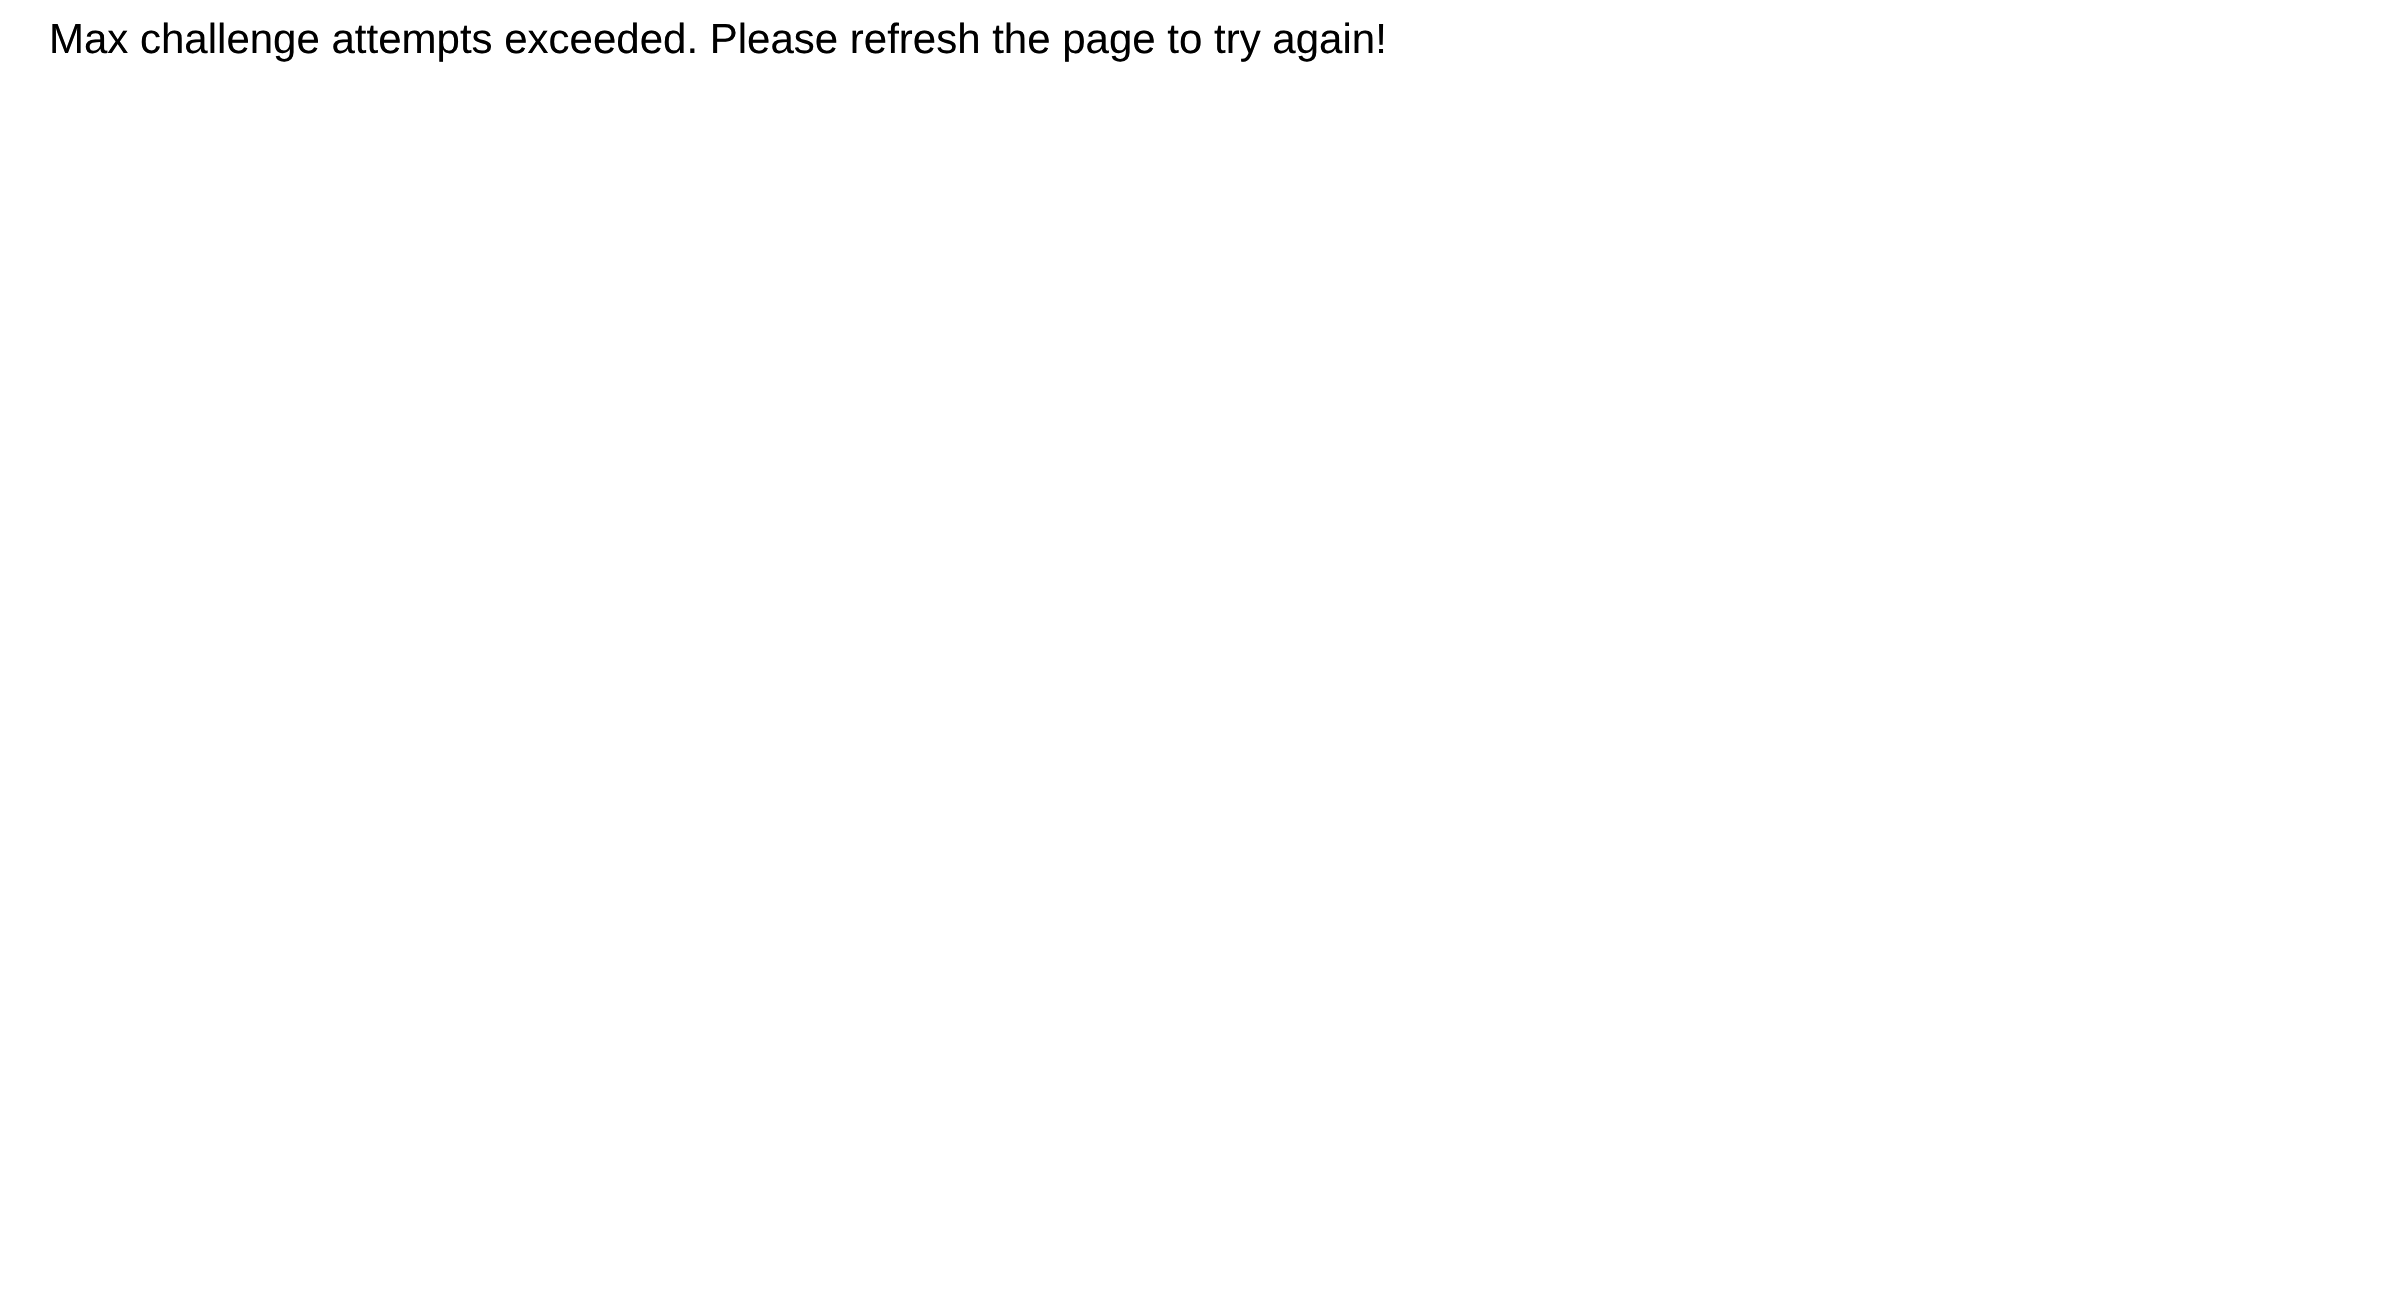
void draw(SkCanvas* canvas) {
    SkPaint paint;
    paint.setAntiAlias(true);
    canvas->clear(0xFFFFFFFF);
    SkFont font1(fontMgr->matchFamilyStyle("Liberation Sans", SkFontStyle::Normal()), 42);
    font1.setSubpixel(true);
    paint.setColor(0xFF000000);
    canvas->drawString("Max challenge attempts exceeded. Please refresh the page to try again!", 49, 53, font1, paint);
}
